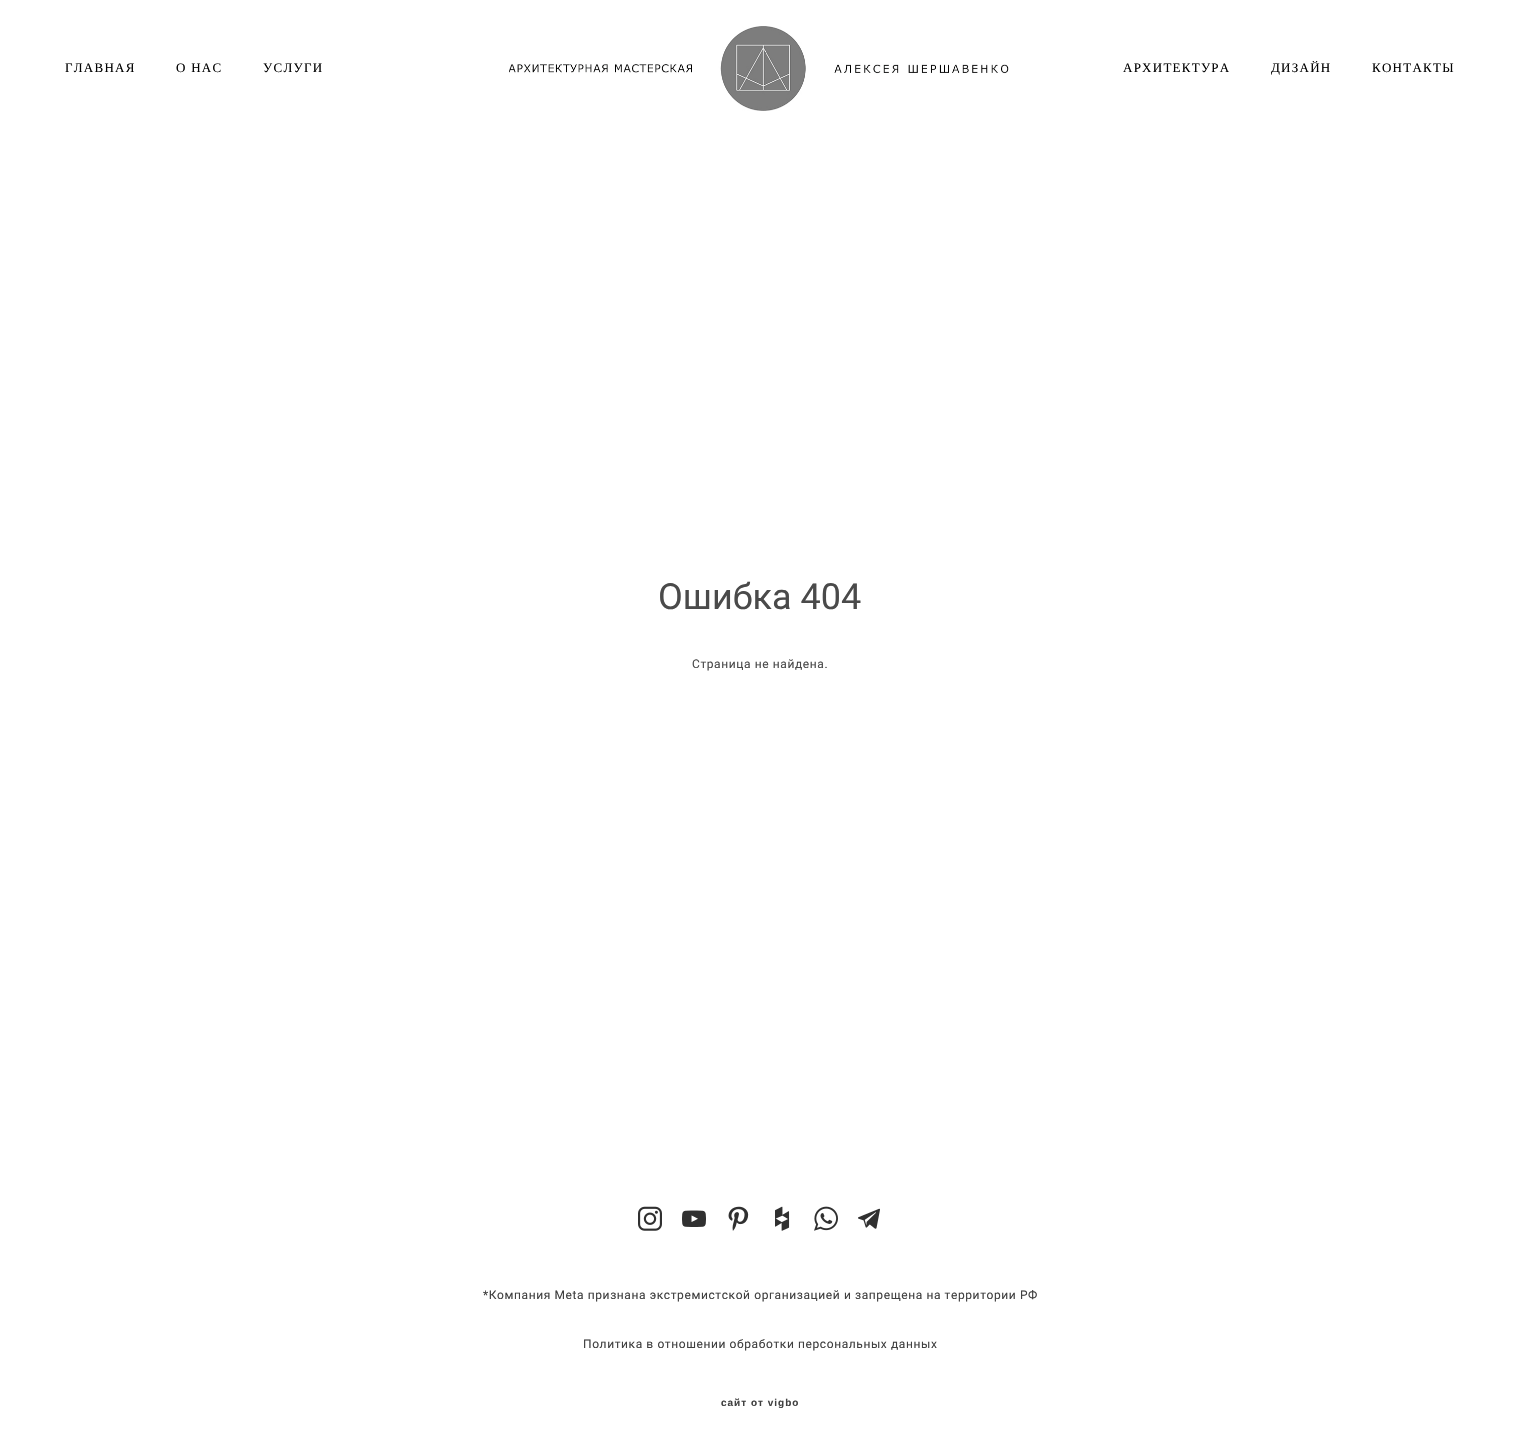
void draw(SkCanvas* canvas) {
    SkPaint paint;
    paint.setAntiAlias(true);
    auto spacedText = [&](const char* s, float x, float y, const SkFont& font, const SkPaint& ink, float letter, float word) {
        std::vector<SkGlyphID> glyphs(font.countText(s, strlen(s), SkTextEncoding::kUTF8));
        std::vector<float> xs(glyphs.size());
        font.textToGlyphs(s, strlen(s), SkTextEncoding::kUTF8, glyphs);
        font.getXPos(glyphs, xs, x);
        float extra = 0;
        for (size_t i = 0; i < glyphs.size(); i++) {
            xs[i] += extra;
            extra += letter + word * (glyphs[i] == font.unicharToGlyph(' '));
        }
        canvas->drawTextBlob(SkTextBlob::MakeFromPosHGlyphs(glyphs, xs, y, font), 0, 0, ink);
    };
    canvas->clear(0xFFFFFFFF);
    SkFont font1(fontMgr->matchFamilyStyle("Liberation Serif", SkFontStyle::Normal()), 13);
    font1.setSubpixel(true);
    paint.setColor(0xFF030303);
    spacedText("ГЛАВНАЯ", 65, 72, font1, paint, 1.25f, 0);
    spacedText("О НАС", 176, 72, font1, paint, 1.25f, 0);
    spacedText("УСЛУГИ", 263, 72, font1, paint, 1.25f, 0);
    canvas->drawImageRect(SkImages::DeferredFromEncodedData(SkData::MakeFromFileName("img1.png")), SkRect::MakeXYWH(509, 26, 500, 85), SkSamplingOptions());
    spacedText("АРХИТЕКТУРА", 1123, 72, font1, paint, 1.25f, 0);
    spacedText("ДИЗАЙН", 1271, 72, font1, paint, 1.25f, 0);
    spacedText("КОНТАКТЫ", 1372, 72, font1, paint, 1.25f, 0);
    SkFont font2(fontMgr->matchFamilyStyle("Roboto", SkFontStyle::Normal()), 36);
    font2.setSubpixel(true);
    paint.setColor(0xFF4A4A4A);
    canvas->drawString("Ошибка 404", 658, 609, font2, paint);
    SkFont font3(fontMgr->matchFamilyStyle("Roboto", SkFontStyle::Normal()), 12);
    font3.setSubpixel(true);
    spacedText("Страница не найдена.", 692, 668, font3, paint, 0.6f, 0);
    canvas->drawImageRect(SkImages::DeferredFromEncodedData(SkData::MakeFromFileName("img2.png")), SkRect::MakeXYWH(638, 1206, 24, 25), SkSamplingOptions());
    canvas->drawImageRect(SkImages::DeferredFromEncodedData(SkData::MakeFromFileName("img3.png")), SkRect::MakeXYWH(682, 1210, 24, 17), SkSamplingOptions());
    canvas->drawImageRect(SkImages::DeferredFromEncodedData(SkData::MakeFromFileName("img4.png")), SkRect::MakeXYWH(728, 1206, 21, 25), SkSamplingOptions());
    canvas->drawImageRect(SkImages::DeferredFromEncodedData(SkData::MakeFromFileName("img5.png")), SkRect::MakeXYWH(775, 1206, 15, 25), SkSamplingOptions());
    canvas->drawImageRect(SkImages::DeferredFromEncodedData(SkData::MakeFromFileName("img6.png")), SkRect::MakeXYWH(814, 1206, 24, 25), SkSamplingOptions());
    canvas->drawImageRect(SkImages::DeferredFromEncodedData(SkData::MakeFromFileName("img7.png")), SkRect::MakeXYWH(858, 1208, 22, 21), SkSamplingOptions());
    paint.setColor(0xFF404040);
    spacedText("*Компания Meta признана экстремистской организацией и запрещена на территории РФ", 483, 1299, font3, paint, 0.6f, 0);
    spacedText("Политика в отношении обработки персональных данных", 583, 1348, font3, paint, 0.6f, 0);
    SkFont font4(fontMgr->matchFamilyStyle("Liberation Sans", SkFontStyle::Bold()), 10);
    font4.setSubpixel(true);
    spacedText("сайт от vigbo", 721, 1406, font4, paint, 1, 0);
}
